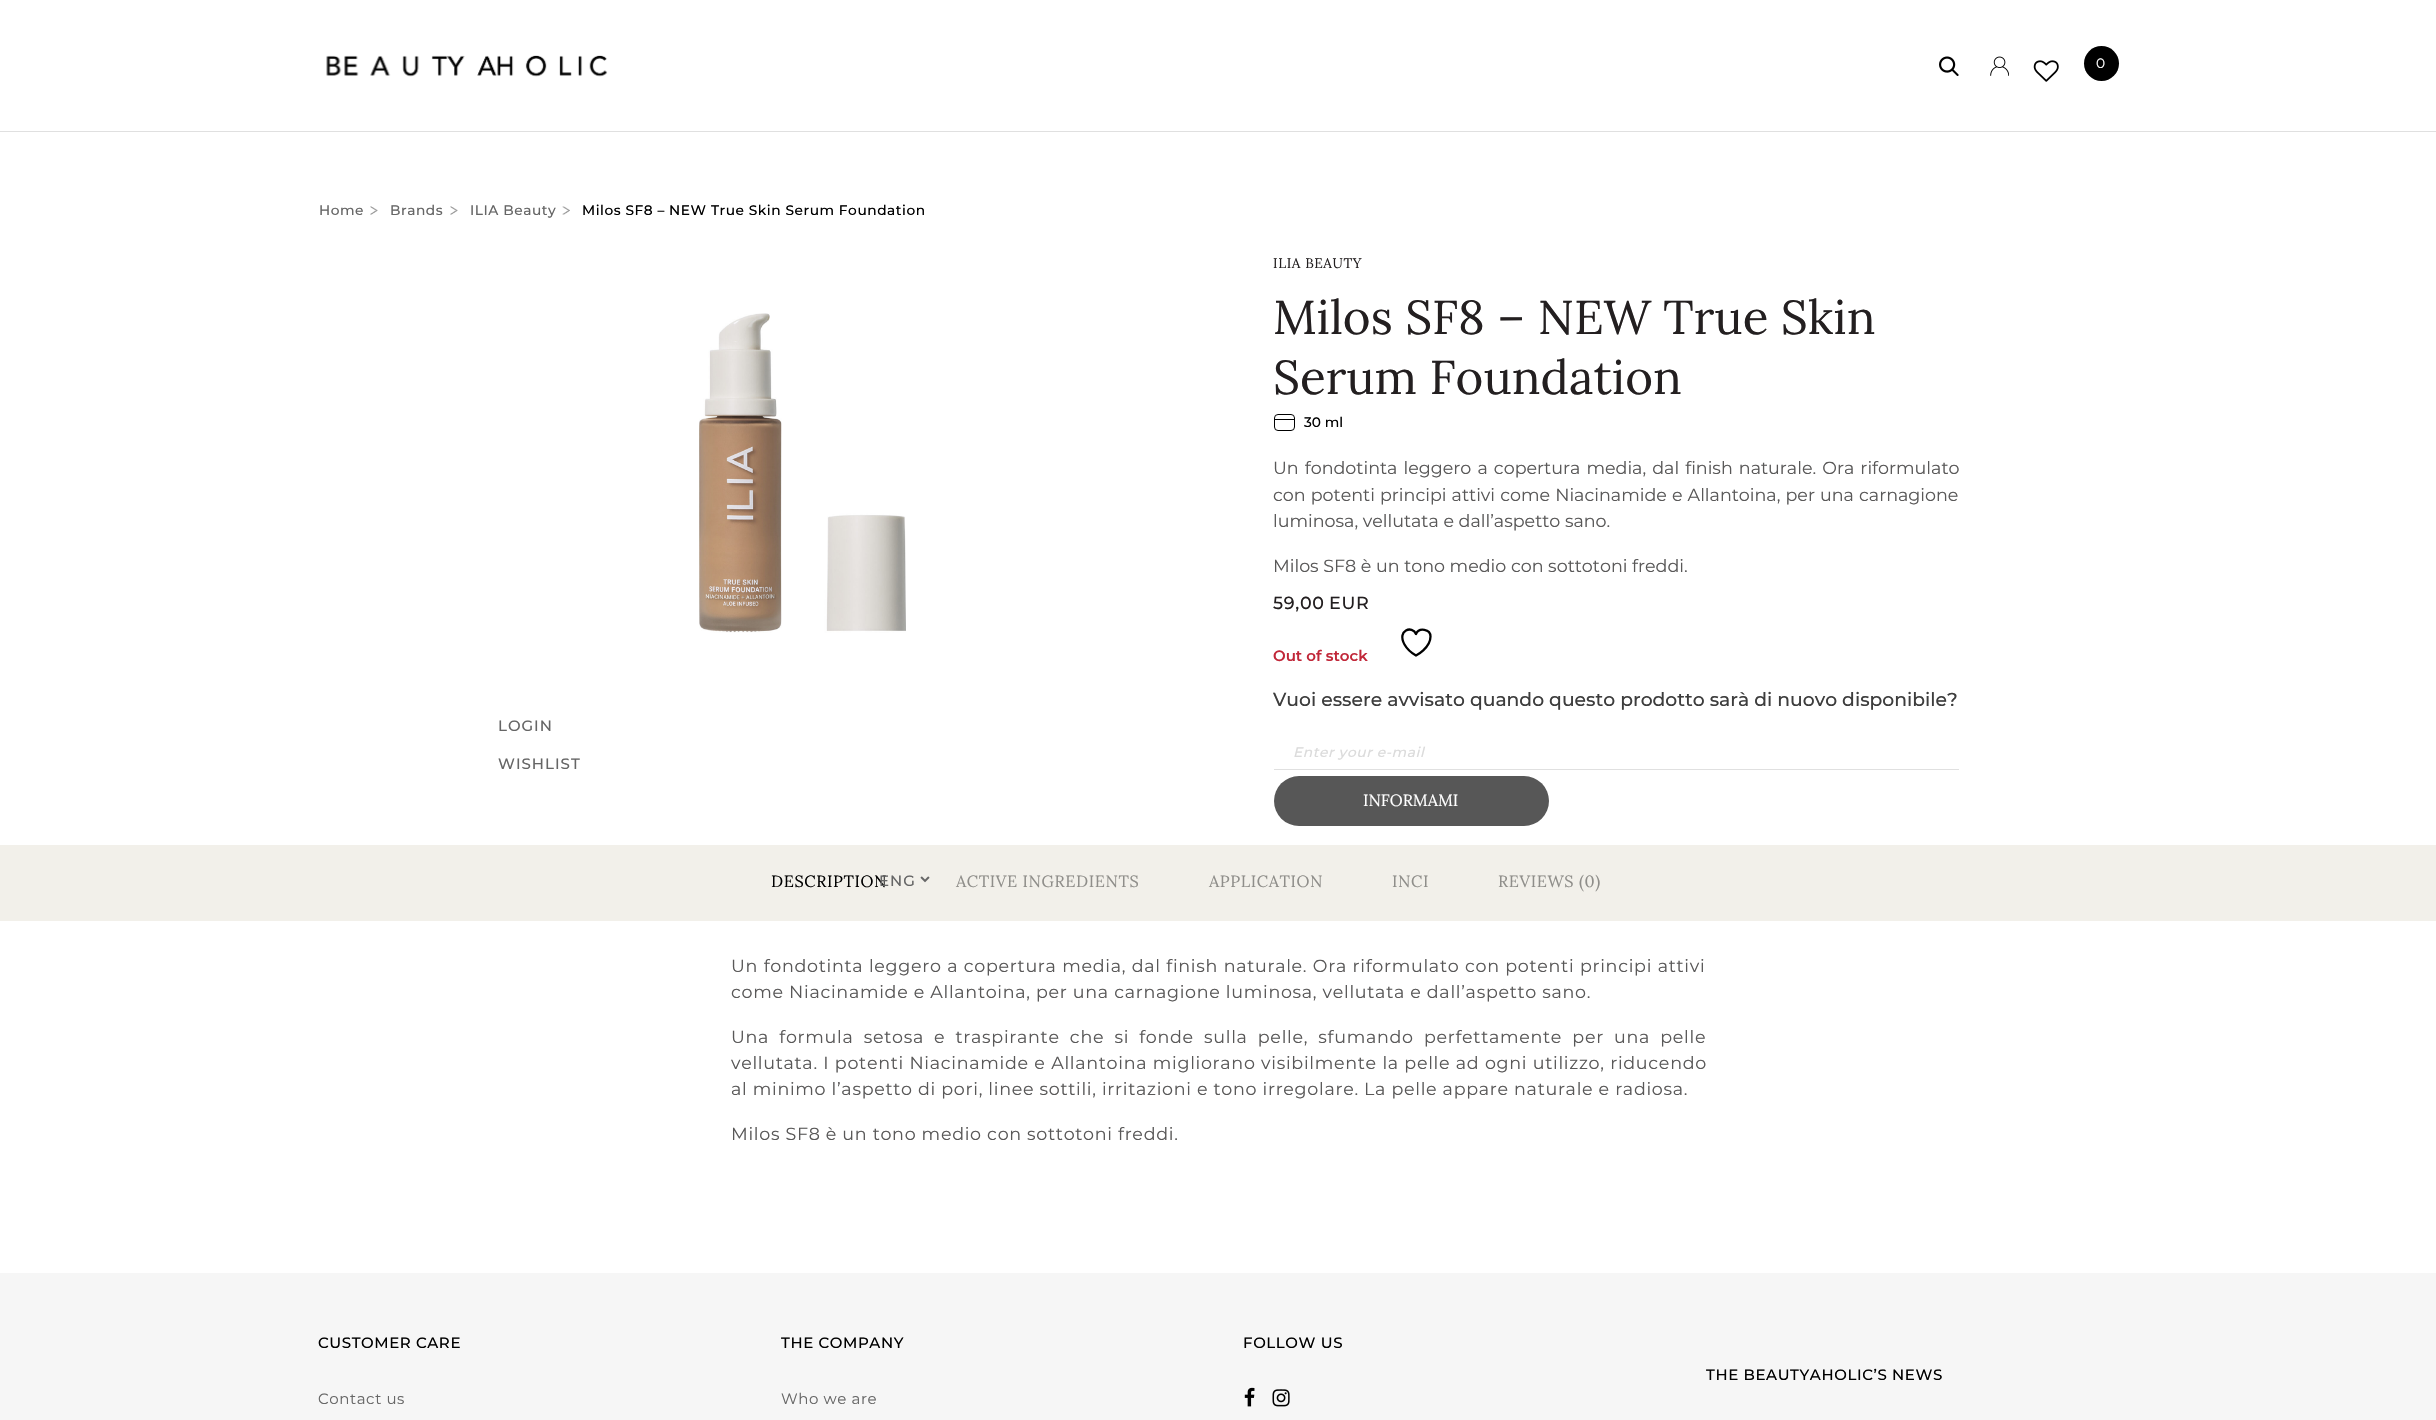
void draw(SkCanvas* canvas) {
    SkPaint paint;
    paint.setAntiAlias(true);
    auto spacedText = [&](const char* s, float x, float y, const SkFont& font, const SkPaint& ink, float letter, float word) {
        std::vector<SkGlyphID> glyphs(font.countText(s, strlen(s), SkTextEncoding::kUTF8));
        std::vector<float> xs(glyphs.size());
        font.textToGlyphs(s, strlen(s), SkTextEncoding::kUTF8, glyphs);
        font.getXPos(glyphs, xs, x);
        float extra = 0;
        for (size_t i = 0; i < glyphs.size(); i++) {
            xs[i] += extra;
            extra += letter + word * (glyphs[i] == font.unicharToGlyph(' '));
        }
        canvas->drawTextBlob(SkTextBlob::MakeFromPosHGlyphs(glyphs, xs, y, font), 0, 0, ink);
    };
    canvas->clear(0xFFFFFFFF);
    canvas->drawImageRect(SkImages::DeferredFromEncodedData(SkData::MakeFromFileName("img1.png")), SkRect::MakeXYWH(326, 55, 282, 22), SkSamplingOptions());
    canvas->drawImageRect(SkImages::DeferredFromEncodedData(SkData::MakeFromFileName("img2.png")), SkRect::MakeXYWH(1939, 56, 20, 20), SkSamplingOptions());
    canvas->drawImageRect(SkImages::DeferredFromEncodedData(SkData::MakeFromFileName("img3.png")), SkRect::MakeXYWH(1990, 56, 19, 20), SkSamplingOptions());
    canvas->drawImageRect(SkImages::DeferredFromEncodedData(SkData::MakeFromFileName("img4.png")), SkRect::MakeXYWH(2033, 60, 26, 22), SkSamplingOptions());
    paint.setColor(0xFF000000);
    canvas->drawCircle(2101.5f, 63.5f, 17.5f, paint);
    SkFont font1(fontMgr->matchFamilyStyle("Montserrat", SkFontStyle::Normal()), 13.75f);
    font1.setSubpixel(true);
    paint.setColor(0xFFFFFFFF);
    spacedText("0", 2096, 68, font1, paint, 1, 0);
    SkFont font2(fontMgr->matchFamilyStyle("Montserrat", SkFontStyle(500, SkFontStyle::kNormal_Width, SkFontStyle::kUpright_Slant)), 15);
    font2.setSubpixel(true);
    paint.setColor(0xFF666666);
    spacedText("LOGIN", 498, 731, font2, paint, 1, 0);
    spacedText("WISHLIST", 498, 769, font2, paint, 1, 0);
    paint.setColor(0xFFF2F0EA);
    canvas->drawRect(SkRect::MakeXYWH(0, 845, 2436, 76), paint);
    SkFont font3(fontMgr->matchFamilyStyle("Lora", SkFontStyle::Normal()), 16.25f);
    font3.setSubpixel(true);
    paint.setColor(0xFF000000);
    spacedText("DESCRIPTION", 771, 887, font3, paint, 0.6f, 0);
    paint.setColor(0xFF666666);
    spacedText("ENG", 879, 886, font2, paint, 1, 0);
    canvas->drawImageRect(SkImages::DeferredFromEncodedData(SkData::MakeFromFileName("img5.png")), SkRect::MakeXYWH(920, 876, 10, 7), SkSamplingOptions());
    paint.setColor(0xFFE0E0E0);
    canvas->drawRect(SkRect::MakeXYWH(0, 131, 2436, 1), paint);
    SkFont font4(fontMgr->matchFamilyStyle("Montserrat", SkFontStyle(500, SkFontStyle::kNormal_Width, SkFontStyle::kUpright_Slant)), 13.75f);
    font4.setSubpixel(true);
    paint.setColor(0xFF666666);
    spacedText("Home", 319, 215, font4, paint, 0.55f, 0);
    canvas->drawImageRect(SkImages::DeferredFromEncodedData(SkData::MakeFromFileName("img6.png")), SkRect::MakeXYWH(370, 206, 8, 9), SkSamplingOptions());
    spacedText("Brands", 390, 215, font4, paint, 0.55f, 0);
    canvas->drawImageRect(SkImages::DeferredFromEncodedData(SkData::MakeFromFileName("img6.png")), SkRect::MakeXYWH(450, 206, 8, 9), SkSamplingOptions());
    spacedText("ILIA Beauty", 470, 215, font4, paint, 0.55f, 0);
    canvas->drawImageRect(SkImages::DeferredFromEncodedData(SkData::MakeFromFileName("img7.png")), SkRect::MakeXYWH(562, 206, 8, 9), SkSamplingOptions());
    paint.setColor(0xFF000000);
    spacedText("Milos SF8 – NEW True Skin Serum Foundation", 582, 215, font4, paint, 0.55f, 0);
    canvas->drawImageRect(SkImages::DeferredFromEncodedData(SkData::MakeFromFileName("img8.png")), SkRect::MakeXYWH(699, 313, 207, 320), SkSamplingOptions());
    SkFont font5(fontMgr->matchFamilyStyle("Lora", SkFontStyle::Normal()), 13.75f);
    font5.setSubpixel(true);
    paint.setColor(0xFF231F20);
    spacedText("ILIA BEAUTY", 1273, 268, font5, paint, 0.55f, 0);
    SkFont font6(fontMgr->matchFamilyStyle("Lora", SkFontStyle::Normal()), 47.5f);
    font6.setSubpixel(true);
    canvas->drawString("Milos SF8 – NEW True Skin", 1273, 334, font6, paint);
    canvas->drawString("Serum Foundation", 1273, 394, font6, paint);
    paint.setStyle(SkPaint::kStroke_Style);
    paint.setStrokeWidth(1);
    paint.setColor(0xFF000000);
    canvas->drawRoundRect(SkRect::MakeXYWH(1274.5f, 414.5f, 20, 16), 3.5f, 3.5f, paint);
    paint.setStyle(SkPaint::kFill_Style);
    canvas->drawRect(SkRect::MakeXYWH(1275, 419, 20, 1), paint);
    canvas->drawString("30 ml", 1304, 427, font4, paint);
    SkFont font7(fontMgr->matchFamilyStyle("Montserrat", SkFontStyle::Normal()), 17.5f);
    font7.setSubpixel(true);
    paint.setColor(0xFF595858);
    spacedText("Un fondotinta leggero a copertura media, dal finish naturale. Ora riformulato", 1273, 474, font7, paint, 0, 1.5f);
    spacedText("con potenti principi attivi come Niacinamide e Allantoina, per una carnagione", 1273, 501, font7, paint, 0, 0.5f);
    canvas->drawString("luminosa, vellutata e dall’aspetto sano.", 1273, 527, font7, paint);
    canvas->drawString("Milos SF8 è un tono medio con sottotoni freddi.", 1273, 572, font7, paint);
    SkFont font8(fontMgr->matchFamilyStyle("Montserrat", SkFontStyle(500, SkFontStyle::kNormal_Width, SkFontStyle::kUpright_Slant)), 17.5f);
    font8.setSubpixel(true);
    paint.setColor(0xFF231F20);
    spacedText("59,00", 1273, 609, font8, paint, 0.7f, 0);
    spacedText("EUR", 1329, 609, font8, paint, 0.7f, 0);
    SkFont font9(fontMgr->matchFamilyStyle("Montserrat", SkFontStyle(600, SkFontStyle::kNormal_Width, SkFontStyle::kUpright_Slant)), 15);
    font9.setSubpixel(true);
    paint.setColor(0xFFC12739);
    canvas->drawString("Out of stock", 1273, 661, font9, paint);
    paint.setStyle(SkPaint::kStroke_Style);
    paint.setStrokeWidth(2.3f);
    paint.setStrokeCap(SkPaint::kRound_Cap);
    paint.setStrokeJoin(SkPaint::kRound_Join);
    paint.setColor(0xFF000000);
    canvas->drawPath(SkPathBuilder().moveTo(1430.5f, 636.5f).cubicTo(1430.5f, 629, 1419, 627, 1416, 634).cubicTo(1412.5f, 625, 1396.5f, 630, 1404.5f, 644.5f).cubicTo(1407, 649, 1411.5f, 653, 1416, 655.5f).cubicTo(1416, 655.5f, 1430.5f, 648, 1430.5f, 636.5f).close().detach(), paint);
    SkFont font10(fontMgr->matchFamilyStyle("Montserrat", SkFontStyle(500, SkFontStyle::kNormal_Width, SkFontStyle::kUpright_Slant)), 18.75f);
    font10.setSubpixel(true);
    paint.setStyle(SkPaint::kFill_Style);
    paint.setColor(0xFF3D3D3D);
    canvas->drawString("Vuoi essere avvisato quando questo prodotto sarà di nuovo disponibile?", 1273, 706, font10, paint);
    paint.setColor(0xFFE0E0E0);
    canvas->drawRect(SkRect::MakeXYWH(1274, 769, 685, 1), paint);
    SkFont font11(fontMgr->matchFamilyStyle("Montserrat", SkFontStyle(500, SkFontStyle::kNormal_Width, SkFontStyle::kItalic_Slant)), 13.75f);
    font11.setSubpixel(true);
    paint.setColor(0xFFDBDBDB);
    spacedText("Enter your e-mail", 1293, 757, font11, paint, 0.6f, 0);
    paint.setColor(0xFF575757);
    canvas->drawRoundRect(SkRect::MakeXYWH(1274, 776, 275, 50), 25, 25, paint);
    paint.setColor(0xFFFFFFFF);
    canvas->drawString("INFORMAMI", 1363, 806, font3, paint);
    paint.setColor(0xFF8F8E8A);
    spacedText("ACTIVE INGREDIENTS", 956, 887, font3, paint, 0.6f, 0);
    spacedText("APPLICATION", 1209, 887, font3, paint, 0.6f, 0);
    spacedText("INCI", 1392, 887, font3, paint, 0.6f, 0);
    spacedText("REVIEWS (0)", 1498, 887, font3, paint, 0.6f, 0);
    paint.setColor(0xFF595858);
    spacedText("Un fondotinta leggero a copertura media, dal finish naturale. Ora riformulato con potenti principi attivi", 731, 972, font7, paint, 0.7f, 0.3f);
    spacedText("come Niacinamide e Allantoina, per una carnagione luminosa, vellutata e dall’aspetto sano.", 731, 998, font7, paint, 0.7f, 0);
    spacedText("Una formula setosa e traspirante che si fonde sulla pelle, sfumando perfettamente per una pelle", 731, 1043, font7, paint, 0.7f, 4.9f);
    spacedText("vellutata. I potenti Niacinamide e Allantoina migliorano visibilmente la pelle ad ogni utilizzo, riducendo", 731, 1069, font7, paint, 0.7f, 0.25f);
    spacedText("al minimo l’aspetto di pori, linee sottili, irritazioni e tono irregolare. La pelle appare naturale e radiosa.", 731, 1095, font7, paint, 0.7f, 0);
    spacedText("Milos SF8 è un tono medio con sottotoni freddi.", 731, 1140, font7, paint, 0.7f, 0);
    paint.setColor(0xFFF6F6F6);
    canvas->drawRect(SkRect::MakeXYWH(0, 1273, 2436, 147), paint);
    paint.setColor(0xFF000000);
    spacedText("CUSTOMER CARE", 318, 1348, font2, paint, 0.6f, 0);
    SkFont font12(fontMgr->matchFamilyStyle("Montserrat", SkFontStyle::Normal()), 15);
    font12.setSubpixel(true);
    paint.setColor(0xFF666666);
    spacedText("Contact us", 318, 1404, font12, paint, 0.6f, 0);
    paint.setColor(0xFF000000);
    spacedText("THE COMPANY", 781, 1348, font2, paint, 0.6f, 0);
    paint.setColor(0xFF666666);
    spacedText("Who we are", 781, 1404, font12, paint, 0.6f, 0);
    paint.setColor(0xFF000000);
    spacedText("FOLLOW US", 1243, 1348, font2, paint, 0.6f, 0);
    canvas->drawImageRect(SkImages::DeferredFromEncodedData(SkData::MakeFromFileName("img9.png")), SkRect::MakeXYWH(1244, 1387, 11, 20), SkSamplingOptions());
    canvas->drawImageRect(SkImages::DeferredFromEncodedData(SkData::MakeFromFileName("img10.png")), SkRect::MakeXYWH(1272, 1389, 18, 18), SkSamplingOptions());
    spacedText("THE BEAUTYAHOLIC’S NEWS", 1706, 1380, font2, paint, 0.6f, 0);
}
